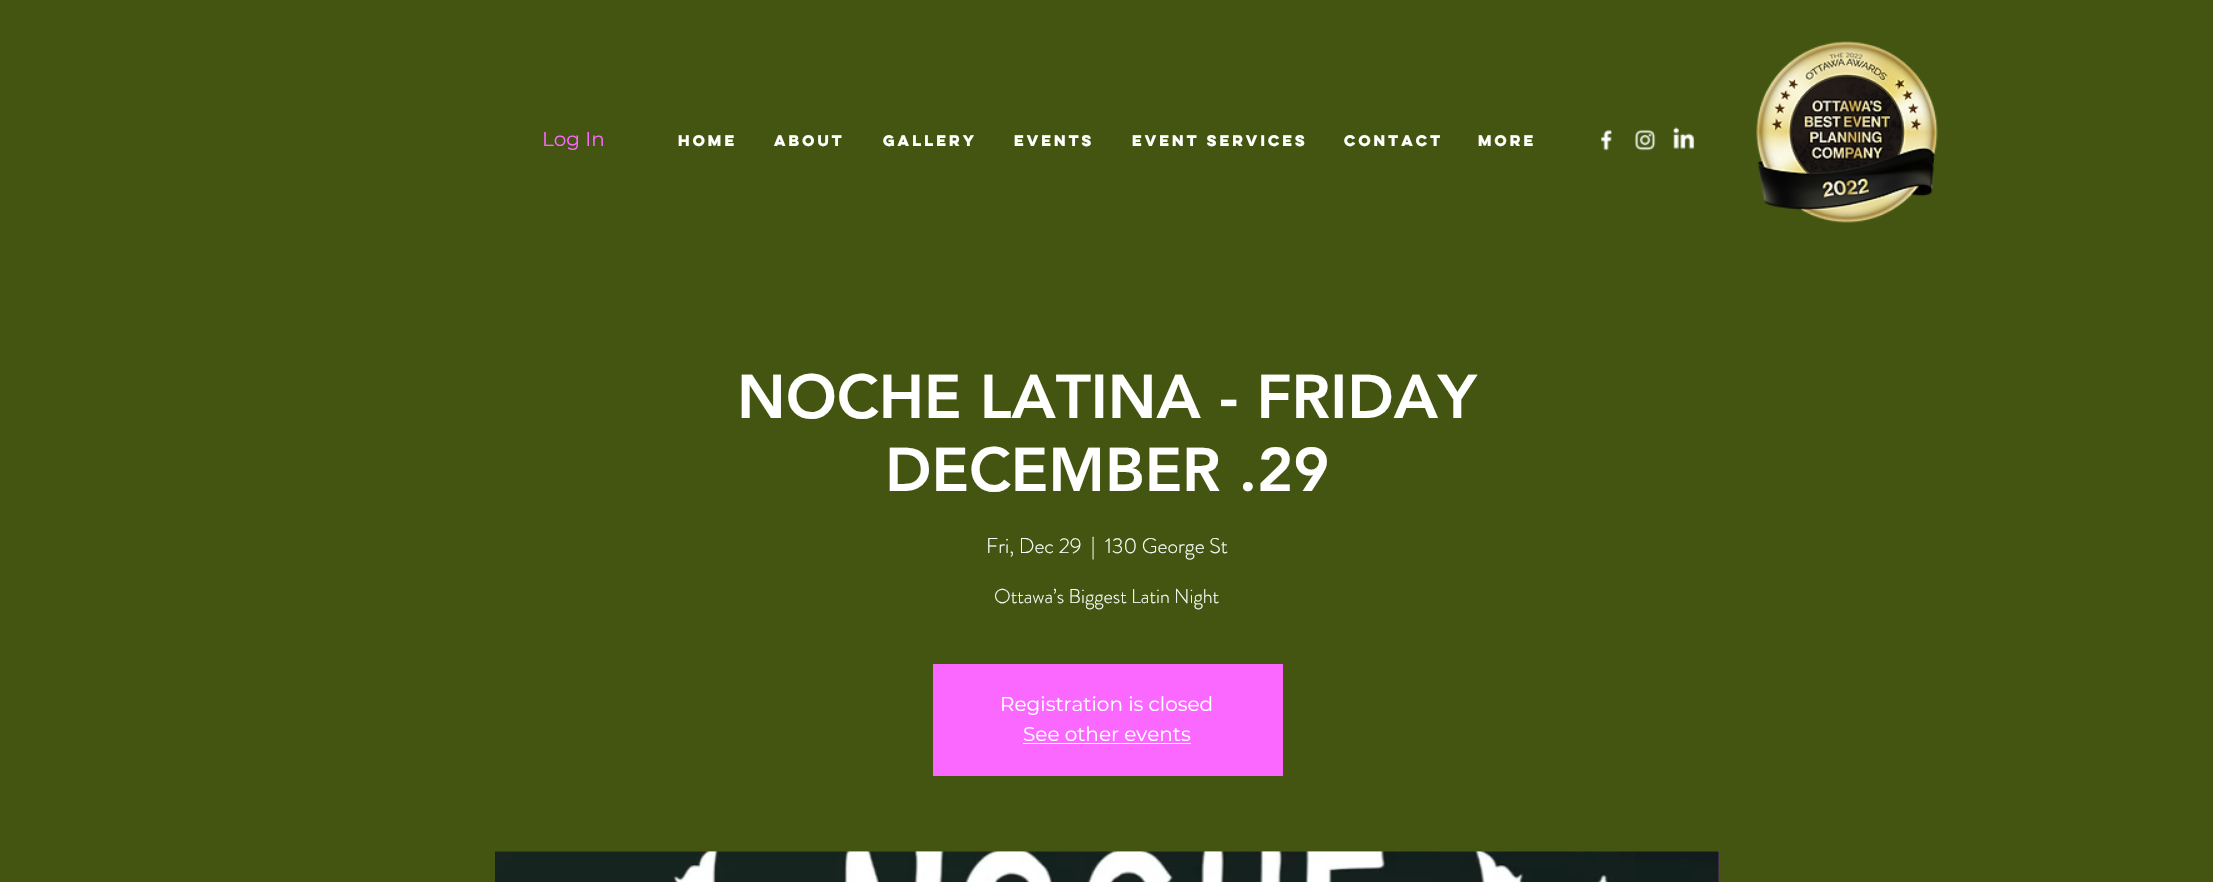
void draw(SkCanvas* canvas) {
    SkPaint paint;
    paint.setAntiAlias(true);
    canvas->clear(0xFF435511);
    SkFont font1(fontMgr->matchFamilyStyle("Montserrat", SkFontStyle::Normal()), 20);
    font1.setSubpixel(true);
    paint.setColor(0xFFFB68FF);
    canvas->drawString("Log In", 542, 146, font1, paint);
    SkFont font2(fontMgr->matchFamilyStyle("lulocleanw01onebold", SkFontStyle::Bold()), 13.75f);
    font2.setSubpixel(true);
    paint.setColor(0xFFFFFFFF);
    canvas->drawString("HOME", 678, 146, font2, paint);
    canvas->drawString("About", 774, 146, font2, paint);
    canvas->drawString("GALLERY", 883, 146, font2, paint);
    canvas->drawString("EVENTS", 1014, 146, font2, paint);
    canvas->drawString("Event Services", 1132, 146, font2, paint);
    canvas->drawString("CONTACT", 1344, 146, font2, paint);
    canvas->drawString("More", 1478, 146, font2, paint);
    canvas->drawImageRect(SkImages::DeferredFromEncodedData(SkData::MakeFromFileName("img1.png")), SkRect::MakeXYWH(1601, 129, 11, 22), SkSamplingOptions());
    canvas->drawImageRect(SkImages::DeferredFromEncodedData(SkData::MakeFromFileName("img2.png")), SkRect::MakeXYWH(1634, 129, 22, 22), SkSamplingOptions());
    canvas->drawImageRect(SkImages::DeferredFromEncodedData(SkData::MakeFromFileName("img3.png")), SkRect::MakeXYWH(1673, 127, 22, 22), SkSamplingOptions());
    canvas->drawImageRect(SkImages::DeferredFromEncodedData(SkData::MakeFromFileName("img4.png")), SkRect::MakeXYWH(1756, 41, 182, 182), SkSamplingOptions());
    SkFont font3(fontMgr->matchFamilyStyle("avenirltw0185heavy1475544", SkFontStyle(900, SkFontStyle::kNormal_Width, SkFontStyle::kUpright_Slant)), 61.25f);
    font3.setSubpixel(true);
    canvas->drawString("NOCHE LATINA - FRIDAY", 737, 418, font3, paint);
    canvas->drawString("DECEMBER .29", 885, 491, font3, paint);
    SkFont font4(fontMgr->matchFamilyStyle("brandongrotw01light", SkFontStyle(300, SkFontStyle::kNormal_Width, SkFontStyle::kUpright_Slant)), 21.25f);
    font4.setSubpixel(true);
    canvas->drawString("Fri, Dec 29", 986, 553, font4, paint);
    canvas->drawString("|", 1091, 553, font4, paint);
    canvas->drawString("130 George St", 1105, 553, font4, paint);
    SkFont font5(fontMgr->matchFamilyStyle("brandongrotw01light", SkFontStyle(300, SkFontStyle::kNormal_Width, SkFontStyle::kUpright_Slant)), 20);
    font5.setSubpixel(true);
    canvas->drawString("Ottawa’s Biggest Latin Night", 994, 603, font5, paint);
    paint.setColor(0xFFFB68FF);
    canvas->drawRect(SkRect::MakeXYWH(933, 664, 350, 112), paint);
    paint.setColor(0xFFFFFFFF);
    canvas->drawString("Registration is closed", 1000, 711, font1, paint);
    canvas->drawString("See other events", 1023, 741, font1, paint);
    canvas->drawRect(SkRect::MakeXYWH(1023, 743, 168, 1), paint);
    paint.setColor(0xFF7E3480);
    canvas->drawRect(SkRect::MakeXYWH(495, 851, 1224, 31), paint);
    canvas->drawImageRect(SkImages::DeferredFromEncodedData(SkData::MakeFromFileName("img5.png")), SkRect::MakeXYWH(495, 851, 1224, 31), SkSamplingOptions());
}
